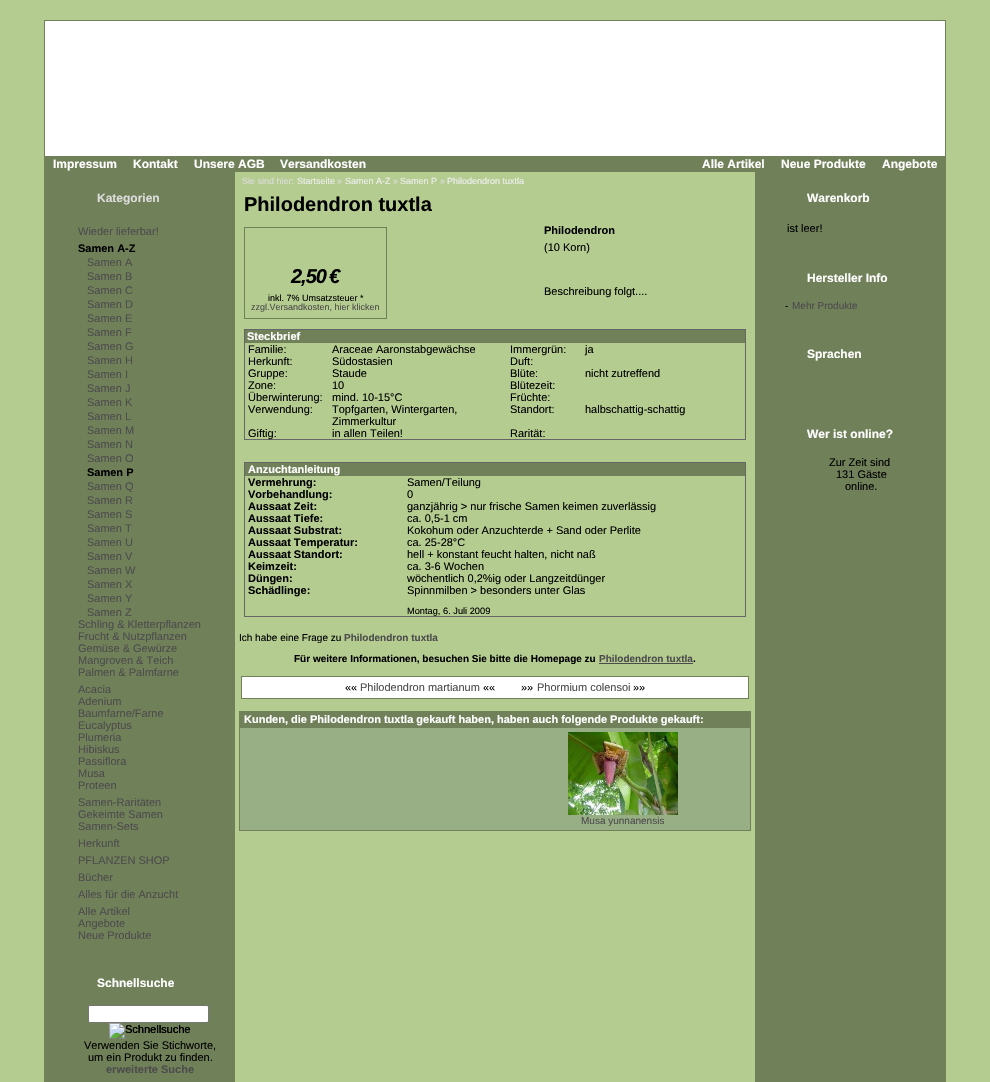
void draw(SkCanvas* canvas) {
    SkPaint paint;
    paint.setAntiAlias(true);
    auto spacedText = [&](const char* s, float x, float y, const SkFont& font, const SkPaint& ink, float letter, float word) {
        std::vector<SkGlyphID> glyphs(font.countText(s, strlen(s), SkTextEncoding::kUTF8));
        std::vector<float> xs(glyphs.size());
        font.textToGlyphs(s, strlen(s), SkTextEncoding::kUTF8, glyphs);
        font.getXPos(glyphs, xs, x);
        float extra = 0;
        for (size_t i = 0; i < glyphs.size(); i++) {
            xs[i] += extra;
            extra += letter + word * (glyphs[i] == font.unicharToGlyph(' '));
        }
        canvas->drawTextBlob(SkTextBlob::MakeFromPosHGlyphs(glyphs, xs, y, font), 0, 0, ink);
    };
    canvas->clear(0xFFB4CC8F);
    paint.setColor(0xFFFFFFFF);
    canvas->drawRect(SkRect::MakeXYWH(45, 21, 900, 135), paint);
    paint.setStyle(SkPaint::kStroke_Style);
    paint.setStrokeWidth(1);
    paint.setColor(0xFF708059);
    canvas->drawRect(SkRect::MakeXYWH(44.5f, 20.5f, 901, 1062), paint);
    paint.setStyle(SkPaint::kFill_Style);
    canvas->drawRect(SkRect::MakeXYWH(45, 156, 900, 16), paint);
    SkFont font1(fontMgr->matchFamilyStyle("Liberation Sans", SkFontStyle::Bold()), 12);
    font1.setSubpixel(true);
    paint.setColor(0xFFFFFFFF);
    canvas->drawString("Impressum", 53, 168, font1, paint);
    canvas->drawString("Kontakt", 133, 168, font1, paint);
    canvas->drawString("Unsere AGB", 194, 168, font1, paint);
    canvas->drawString("Versandkosten", 280, 168, font1, paint);
    canvas->drawString("Alle Artikel", 702, 168, font1, paint);
    canvas->drawString("Neue Produkte", 781, 168, font1, paint);
    canvas->drawString("Angebote", 882, 168, font1, paint);
    paint.setColor(0xFF708059);
    canvas->drawRect(SkRect::MakeXYWH(45, 172, 190, 910), paint);
    paint.setColor(0xFFDDDDDD);
    canvas->drawString("Kategorien", 97, 202, font1, paint);
    SkFont font2(fontMgr->matchFamilyStyle("Liberation Sans", SkFontStyle::Normal()), 11);
    font2.setSubpixel(true);
    paint.setColor(0xFF4C4C4C);
    canvas->drawString("Wieder lieferbar!", 78, 235, font2, paint);
    SkFont font3(fontMgr->matchFamilyStyle("Liberation Sans", SkFontStyle::Bold()), 11);
    font3.setSubpixel(true);
    paint.setColor(0xFF000000);
    canvas->drawString("Samen A-Z", 78, 252, font3, paint);
    paint.setColor(0xFF4C4C4C);
    canvas->drawString("Samen A", 87, 266, font2, paint);
    canvas->drawString("Samen B", 87, 280, font2, paint);
    canvas->drawString("Samen C", 87, 294, font2, paint);
    canvas->drawString("Samen D", 87, 308, font2, paint);
    canvas->drawString("Samen E", 87, 322, font2, paint);
    canvas->drawString("Samen F", 87, 336, font2, paint);
    canvas->drawString("Samen G", 87, 350, font2, paint);
    canvas->drawString("Samen H", 87, 364, font2, paint);
    canvas->drawString("Samen I", 87, 378, font2, paint);
    canvas->drawString("Samen J", 87, 392, font2, paint);
    canvas->drawString("Samen K", 87, 406, font2, paint);
    canvas->drawString("Samen L", 87, 420, font2, paint);
    canvas->drawString("Samen M", 87, 434, font2, paint);
    canvas->drawString("Samen N", 87, 448, font2, paint);
    canvas->drawString("Samen O", 87, 462, font2, paint);
    paint.setColor(0xFF000000);
    canvas->drawString("Samen P", 87, 476, font3, paint);
    paint.setColor(0xFF4C4C4C);
    canvas->drawString("Samen Q", 87, 490, font2, paint);
    canvas->drawString("Samen R", 87, 504, font2, paint);
    canvas->drawString("Samen S", 87, 518, font2, paint);
    canvas->drawString("Samen T", 87, 532, font2, paint);
    canvas->drawString("Samen U", 87, 546, font2, paint);
    canvas->drawString("Samen V", 87, 560, font2, paint);
    canvas->drawString("Samen W", 87, 574, font2, paint);
    canvas->drawString("Samen X", 87, 588, font2, paint);
    canvas->drawString("Samen Y", 87, 602, font2, paint);
    canvas->drawString("Samen Z", 87, 616, font2, paint);
    canvas->drawString("Schling & Kletterpflanzen", 78, 628, font2, paint);
    canvas->drawString("Frucht & Nutzpflanzen", 78, 640, font2, paint);
    canvas->drawString("Gemüse & Gewürze", 78, 652, font2, paint);
    canvas->drawString("Mangroven & Teich", 78, 664, font2, paint);
    canvas->drawString("Palmen & Palmfarne", 78, 676, font2, paint);
    canvas->drawString("Acacia", 78, 693, font2, paint);
    canvas->drawString("Adenium", 78, 705, font2, paint);
    canvas->drawString("Baumfarne/Farne", 78, 717, font2, paint);
    canvas->drawString("Eucalyptus", 78, 729, font2, paint);
    canvas->drawString("Plumeria", 78, 741, font2, paint);
    canvas->drawString("Hibiskus", 78, 753, font2, paint);
    canvas->drawString("Passiflora", 78, 765, font2, paint);
    canvas->drawString("Musa", 78, 777, font2, paint);
    canvas->drawString("Proteen", 78, 789, font2, paint);
    canvas->drawString("Samen-Raritäten", 78, 806, font2, paint);
    canvas->drawString("Gekeimte Samen", 78, 818, font2, paint);
    canvas->drawString("Samen-Sets", 78, 830, font2, paint);
    canvas->drawString("Herkunft", 78, 847, font2, paint);
    canvas->drawString("PFLANZEN SHOP", 78, 864, font2, paint);
    canvas->drawString("Bücher", 78, 881, font2, paint);
    canvas->drawString("Alles für die Anzucht", 78, 898, font2, paint);
    canvas->drawString("Alle Artikel", 78, 915, font2, paint);
    canvas->drawString("Angebote", 78, 927, font2, paint);
    canvas->drawString("Neue Produkte", 78, 939, font2, paint);
    paint.setColor(0xFFFFFFFF);
    canvas->drawString("Schnellsuche", 97, 987, font1, paint);
    canvas->drawRoundRect(SkRect::MakeXYWH(88.5f, 1005.5f, 120, 17), 1.5f, 1.5f, paint);
    paint.setStyle(SkPaint::kStroke_Style);
    paint.setColor(0xFF767676);
    canvas->drawRoundRect(SkRect::MakeXYWH(88.5f, 1005.5f, 120, 17), 1.5f, 1.5f, paint);
    canvas->drawImageRect(SkImages::DeferredFromEncodedData(SkData::MakeFromFileName("img1.png")), SkRect::MakeXYWH(109, 1023, 82, 16), SkSamplingOptions());
    paint.setStyle(SkPaint::kFill_Style);
    paint.setColor(0xFF000000);
    canvas->drawString("Schnellsuche", 125, 1033, font2, paint);
    canvas->drawString("Verwenden Sie Stichworte,", 84, 1049, font2, paint);
    canvas->drawString("um ein Produkt zu finden.", 88, 1061, font2, paint);
    paint.setColor(0xFF4C4C4C);
    canvas->drawString("erweiterte Suche", 106, 1073, font3, paint);
    SkFont font4(fontMgr->matchFamilyStyle("Liberation Sans", SkFontStyle::Normal()), 9);
    font4.setSubpixel(true);
    paint.setColor(0xFFDDDDDD);
    canvas->drawString("Sie sind hier:", 242, 184, font4, paint);
    paint.setColor(0xFFEEEEEE);
    canvas->drawString("Startseite", 297, 184, font4, paint);
    paint.setColor(0xFFDDDDDD);
    canvas->drawString("»", 337, 184, font4, paint);
    paint.setColor(0xFFEEEEEE);
    canvas->drawString("Samen A-Z", 345, 184, font4, paint);
    paint.setColor(0xFFDDDDDD);
    canvas->drawString("»", 393, 184, font4, paint);
    paint.setColor(0xFFEEEEEE);
    canvas->drawString("Samen P", 400, 184, font4, paint);
    paint.setColor(0xFFDDDDDD);
    canvas->drawString("»", 440, 184, font4, paint);
    paint.setColor(0xFFEEEEEE);
    canvas->drawString("Philodendron tuxtla", 447, 184, font4, paint);
    SkFont font5(fontMgr->matchFamilyStyle("Liberation Sans", SkFontStyle::Bold()), 20);
    font5.setSubpixel(true);
    paint.setColor(0xFF000000);
    canvas->drawString("Philodendron tuxtla", 244, 211, font5, paint);
    paint.setStyle(SkPaint::kStroke_Style);
    paint.setColor(0xFF708059);
    canvas->drawRect(SkRect::MakeXYWH(244.5f, 227.5f, 142, 91), paint);
    SkFont font6(fontMgr->matchFamilyStyle("Liberation Sans", SkFontStyle::BoldItalic()), 20);
    font6.setSubpixel(true);
    paint.setStyle(SkPaint::kFill_Style);
    paint.setColor(0xFF000000);
    spacedText("2,50", 291, 283, font6, paint, -1, 0);
    spacedText("€", 329, 283, font6, paint, -1, 0);
    canvas->drawString("inkl. 7% Umsatzsteuer *", 268, 301, font4, paint);
    paint.setColor(0xFF4C4C4C);
    canvas->drawString("zzgl.Versandkosten, hier klicken", 251, 310, font4, paint);
    paint.setColor(0xFF000000);
    canvas->drawString("Philodendron", 544, 234, font3, paint);
    canvas->drawString("(10 Korn)", 544, 251, font2, paint);
    canvas->drawString("Beschreibung folgt....", 544, 295, font2, paint);
    paint.setStyle(SkPaint::kStroke_Style);
    paint.setColor(0xFF666666);
    canvas->drawRect(SkRect::MakeXYWH(244.5f, 329.5f, 501, 110), paint);
    paint.setStyle(SkPaint::kFill_Style);
    paint.setColor(0xFF708059);
    canvas->drawRect(SkRect::MakeXYWH(245, 330, 500, 13), paint);
    paint.setColor(0xFFFFFFFF);
    canvas->drawString("Steckbrief", 247, 340, font3, paint);
    paint.setColor(0xFF000000);
    canvas->drawString("Familie:", 248, 353, font2, paint);
    canvas->drawString("Araceae Aaronstabgewächse", 332, 353, font2, paint);
    canvas->drawString("Immergrün:", 510, 353, font2, paint);
    canvas->drawString("ja", 585, 353, font2, paint);
    canvas->drawString("Herkunft:", 248, 365, font2, paint);
    canvas->drawString("Südostasien", 332, 365, font2, paint);
    canvas->drawString("Duft:", 510, 365, font2, paint);
    canvas->drawString("Gruppe:", 248, 377, font2, paint);
    canvas->drawString("Staude", 332, 377, font2, paint);
    canvas->drawString("Blüte:", 510, 377, font2, paint);
    canvas->drawString("nicht zutreffend", 585, 377, font2, paint);
    canvas->drawString("Zone:", 248, 389, font2, paint);
    canvas->drawString("10", 332, 389, font2, paint);
    canvas->drawString("Blütezeit:", 510, 389, font2, paint);
    canvas->drawString("Überwinterung:", 248, 401, font2, paint);
    canvas->drawString("mind. 10-15°C", 332, 401, font2, paint);
    canvas->drawString("Früchte:", 510, 401, font2, paint);
    canvas->drawString("Verwendung:", 248, 413, font2, paint);
    canvas->drawString("Topfgarten, Wintergarten,", 332, 413, font2, paint);
    canvas->drawString("Zimmerkultur", 332, 425, font2, paint);
    canvas->drawString("Standort:", 510, 413, font2, paint);
    canvas->drawString("halbschattig-schattig", 585, 413, font2, paint);
    canvas->drawString("Giftig:", 248, 437, font2, paint);
    canvas->drawString("in allen Teilen!", 332, 437, font2, paint);
    canvas->drawString("Rarität:", 510, 437, font2, paint);
    paint.setStyle(SkPaint::kStroke_Style);
    paint.setColor(0xFF666666);
    canvas->drawRect(SkRect::MakeXYWH(244.5f, 462.5f, 501, 154), paint);
    paint.setStyle(SkPaint::kFill_Style);
    paint.setColor(0xFF708059);
    canvas->drawRect(SkRect::MakeXYWH(245, 463, 500, 13), paint);
    paint.setColor(0xFFFFFFFF);
    canvas->drawString("Anzuchtanleitung", 248, 473, font3, paint);
    paint.setColor(0xFF000000);
    canvas->drawString("Vermehrung:", 248, 486, font3, paint);
    canvas->drawString("Samen/Teilung", 407, 486, font2, paint);
    canvas->drawString("Vorbehandlung:", 248, 498, font3, paint);
    canvas->drawString("0", 407, 498, font2, paint);
    canvas->drawString("Aussaat Zeit:", 248, 510, font3, paint);
    canvas->drawString("ganzjährig > nur frische Samen keimen zuverlässig", 407, 510, font2, paint);
    canvas->drawString("Aussaat Tiefe:", 248, 522, font3, paint);
    canvas->drawString("ca. 0,5-1 cm", 407, 522, font2, paint);
    canvas->drawString("Aussaat Substrat:", 248, 534, font3, paint);
    canvas->drawString("Kokohum oder Anzuchterde + Sand oder Perlite", 407, 534, font2, paint);
    canvas->drawString("Aussaat Temperatur:", 248, 546, font3, paint);
    canvas->drawString("ca. 25-28°C", 407, 546, font2, paint);
    canvas->drawString("Aussaat Standort:", 248, 558, font3, paint);
    canvas->drawString("hell + konstant feucht halten, nicht naß", 407, 558, font2, paint);
    canvas->drawString("Keimzeit:", 248, 570, font3, paint);
    canvas->drawString("ca. 3-6 Wochen", 407, 570, font2, paint);
    canvas->drawString("Düngen:", 248, 582, font3, paint);
    canvas->drawString("wöchentlich 0,2%ig oder Langzeitdünger", 407, 582, font2, paint);
    canvas->drawString("Schädlinge:", 248, 594, font3, paint);
    canvas->drawString("Spinnmilben > besonders unter Glas", 407, 594, font2, paint);
    SkFont font7(fontMgr->matchFamilyStyle("Liberation Sans", SkFontStyle::Normal()), 9.25f);
    font7.setSubpixel(true);
    canvas->drawString("Montag, 6. Juli 2009", 407, 614, font7, paint);
    SkFont font8(fontMgr->matchFamilyStyle("Liberation Sans", SkFontStyle::Normal()), 10);
    font8.setSubpixel(true);
    canvas->drawString("Ich habe eine Frage zu", 239, 641, font8, paint);
    SkFont font9(fontMgr->matchFamilyStyle("Liberation Sans", SkFontStyle::Bold()), 10);
    font9.setSubpixel(true);
    paint.setColor(0xFF4C4C4C);
    canvas->drawString("Philodendron tuxtla", 344, 641, font9, paint);
    paint.setColor(0xFF000000);
    canvas->drawString("Für weitere Informationen, besuchen Sie bitte die Homepage zu", 294, 662, font9, paint);
    paint.setColor(0xFF4C4C4C);
    canvas->drawString("Philodendron tuxtla", 599, 662, font9, paint);
    paint.setColor(0xFF000000);
    canvas->drawString(".", 693, 662, font9, paint);
    paint.setColor(0xFF4C4C4C);
    canvas->drawRect(SkRect::MakeXYWH(599, 663, 94, 1), paint);
    paint.setColor(0xFFFFFFFF);
    canvas->drawRect(SkRect::MakeXYWH(241.5f, 676.5f, 507, 22), paint);
    paint.setStyle(SkPaint::kStroke_Style);
    paint.setColor(0xFF708059);
    canvas->drawRect(SkRect::MakeXYWH(241.5f, 676.5f, 507, 22), paint);
    paint.setStyle(SkPaint::kFill_Style);
    paint.setColor(0xFF000000);
    canvas->drawString("««", 345, 691, font2, paint);
    paint.setColor(0xFF4C4C4C);
    canvas->drawString("Philodendron martianum", 360, 691, font2, paint);
    paint.setColor(0xFF000000);
    canvas->drawString("««", 483, 691, font2, paint);
    canvas->drawString("»»", 521, 691, font2, paint);
    paint.setColor(0xFF4C4C4C);
    canvas->drawString("Phormium colensoi", 537, 691, font2, paint);
    paint.setColor(0xFF000000);
    canvas->drawString("»»", 633, 691, font2, paint);
    paint.setColor(0xFF708059);
    canvas->drawRect(SkRect::MakeXYWH(239, 711, 512, 120), paint);
    paint.setColor(0xFFFFFFFF);
    canvas->drawString("Kunden, die Philodendron tuxtla gekauft haben, haben auch folgende Produkte gekauft:", 244, 723, font3, paint);
    paint.setColor(0xFF98AF85);
    canvas->drawRect(SkRect::MakeXYWH(240, 728, 510, 102), paint);
    canvas->drawImageRect(SkImages::DeferredFromEncodedData(SkData::MakeFromFileName("img2.png")), SkRect::MakeXYWH(568, 732, 110, 83), SkSamplingOptions());
    paint.setColor(0xFF4C4C4C);
    canvas->drawString("Musa yunnanensis", 581, 824, font8, paint);
    paint.setColor(0xFF708059);
    canvas->drawRect(SkRect::MakeXYWH(755, 172, 190, 910), paint);
    paint.setColor(0xFFFFFFFF);
    canvas->drawString("Warenkorb", 807, 202, font1, paint);
    paint.setColor(0xFF000000);
    canvas->drawString("ist leer!", 787, 232, font2, paint);
    paint.setColor(0xFFFFFFFF);
    canvas->drawString("Hersteller Info", 807, 282, font1, paint);
    paint.setColor(0xFF000000);
    canvas->drawString("-", 785, 309, font8, paint);
    paint.setColor(0xFF4C4C4C);
    canvas->drawString("Mehr Produkte", 792, 309, font8, paint);
    paint.setColor(0xFFFFFFFF);
    canvas->drawString("Sprachen", 807, 358, font1, paint);
    canvas->drawString("Wer ist online?", 807, 438, font1, paint);
    paint.setColor(0xFF000000);
    canvas->drawString("Zur Zeit sind", 829, 466, font2, paint);
    canvas->drawString("131 Gäste", 836, 478, font2, paint);
    canvas->drawString("online.", 845, 490, font2, paint);
}
